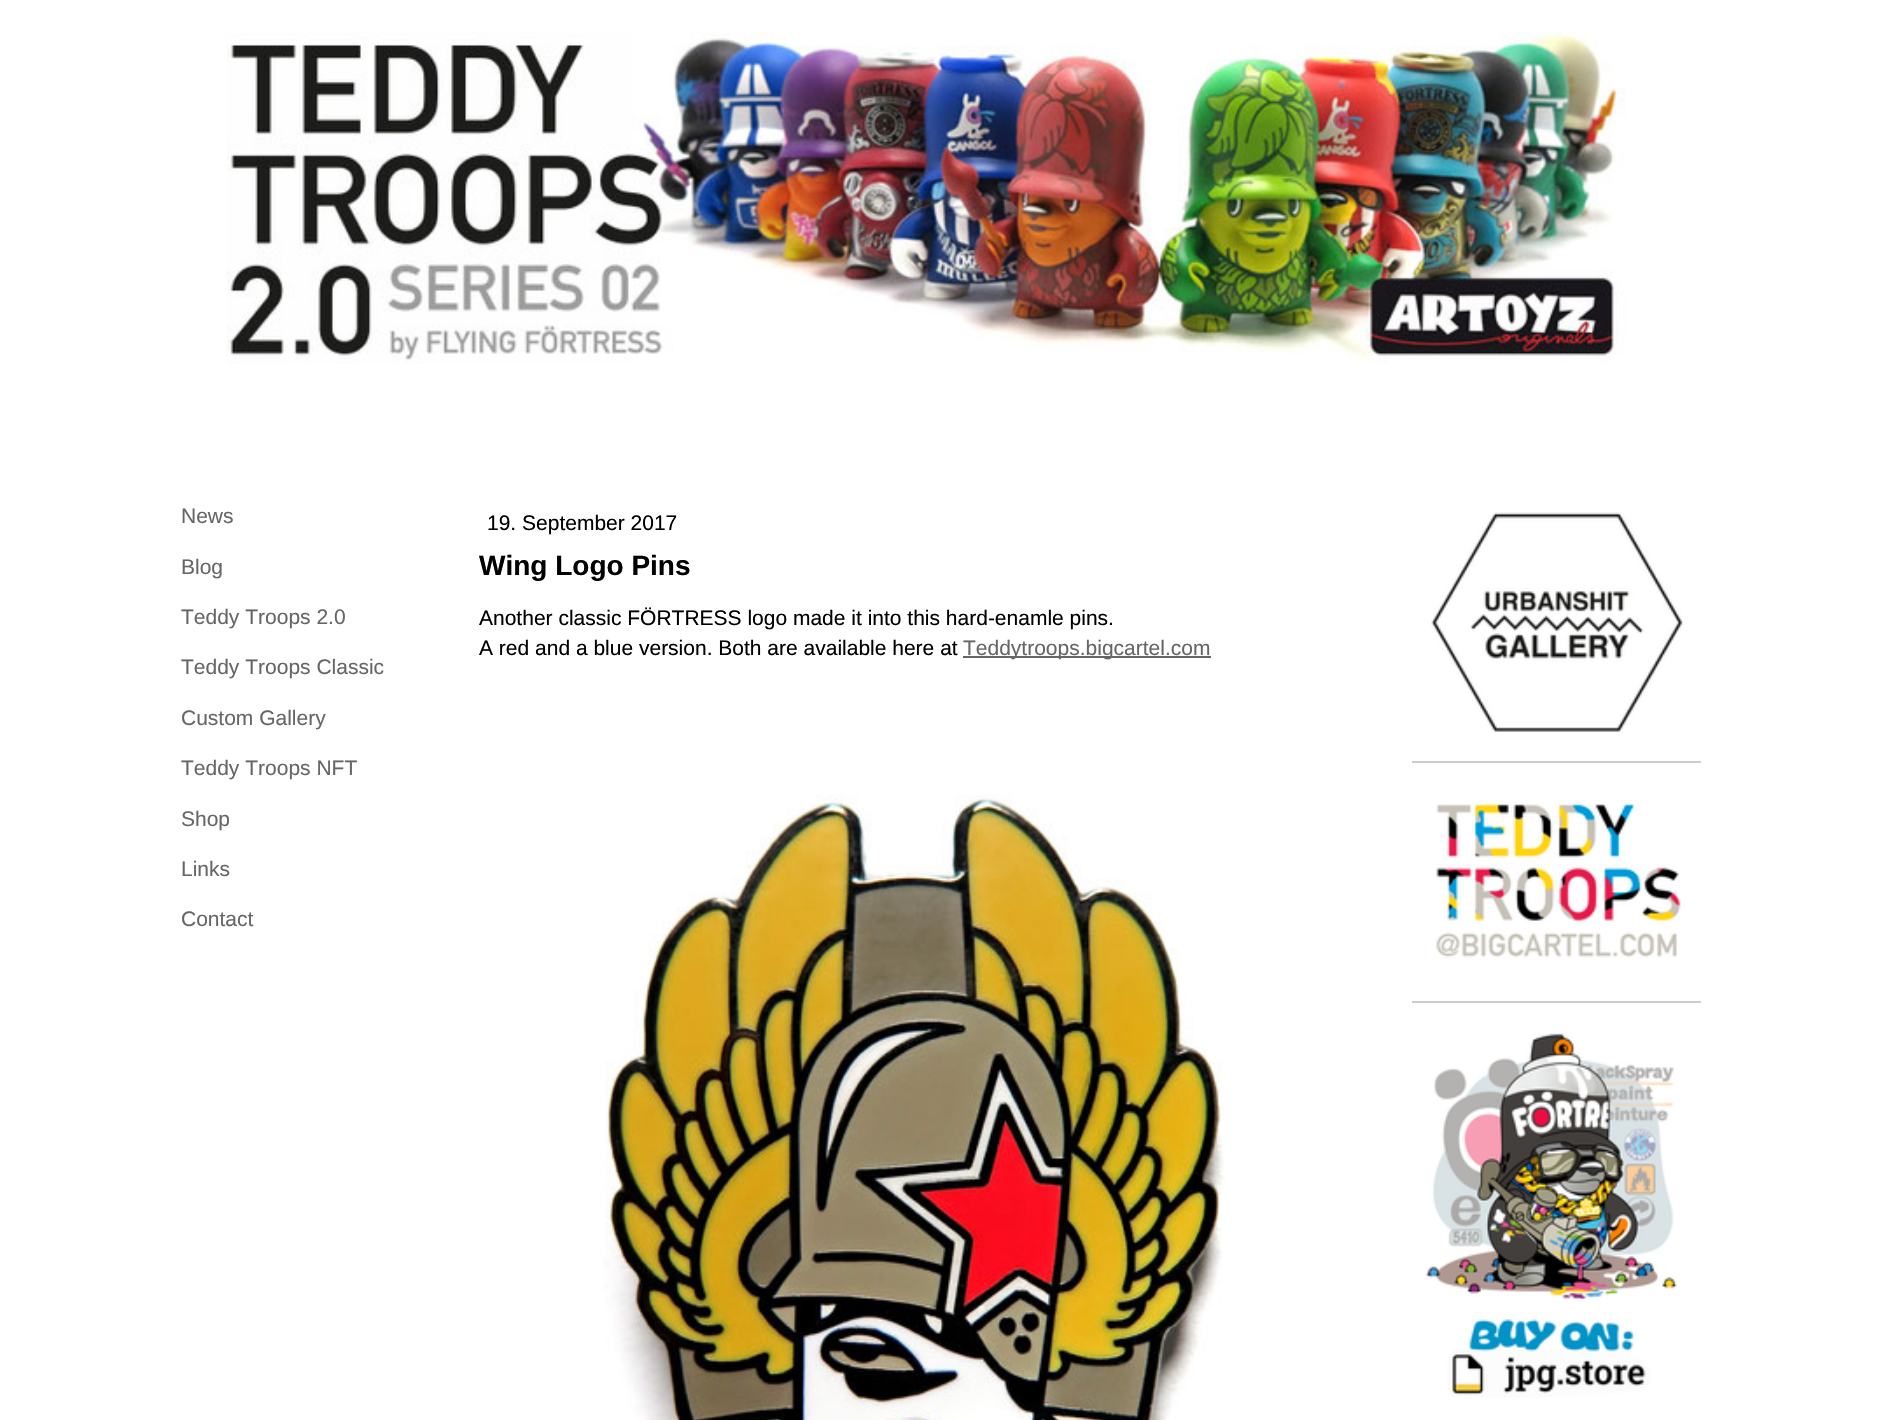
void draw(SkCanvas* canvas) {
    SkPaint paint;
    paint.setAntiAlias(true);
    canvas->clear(0xFFFFFFFF);
    canvas->drawImageRect(SkImages::DeferredFromEncodedData(SkData::MakeFromFileName("img1.png")), SkRect::MakeXYWH(226, 31, 1400, 333), SkSamplingOptions());
    SkFont font1(fontMgr->matchFamilyStyle("Liberation Sans", SkFontStyle::Normal()), 21);
    font1.setSubpixel(true);
    paint.setColor(0xFF666666);
    canvas->drawString("News", 181, 523, font1, paint);
    canvas->drawString("Blog", 181, 574, font1, paint);
    canvas->drawString("Teddy Troops 2.0", 181, 624, font1, paint);
    canvas->drawString("Teddy Troops Classic", 181, 674, font1, paint);
    canvas->drawString("Custom Gallery", 181, 725, font1, paint);
    canvas->drawString("Teddy Troops NFT", 181, 775, font1, paint);
    canvas->drawString("Shop", 181, 826, font1, paint);
    canvas->drawString("Links", 181, 876, font1, paint);
    canvas->drawString("Contact", 181, 926, font1, paint);
    paint.setColor(0xFF000000);
    canvas->drawString("19. September 2017", 487, 530, font1, paint);
    SkFont font2(fontMgr->matchFamilyStyle("Liberation Sans", SkFontStyle::Bold()), 28);
    font2.setSubpixel(true);
    canvas->drawString("Wing Logo Pins", 479, 575, font2, paint);
    canvas->drawString("Another classic FÖRTRESS logo made it into this hard-enamle pins.", 479, 625, font1, paint);
    canvas->drawString("A red and a blue version. Both are available here at", 479, 655, font1, paint);
    paint.setColor(0xFF666666);
    canvas->drawRect(SkRect::MakeXYWH(963, 656, 248, 2), paint);
    canvas->drawString("Teddytroops.bigcartel.com", 963, 655, font1, paint);
    canvas->drawImageRect(SkImages::DeferredFromEncodedData(SkData::MakeFromFileName("img2.png")), SkRect::MakeXYWH(603, 794, 622, 626), SkSamplingOptions());
    canvas->drawImageRect(SkImages::DeferredFromEncodedData(SkData::MakeFromFileName("img3.png")), SkRect::MakeXYWH(1431, 512, 252, 220), SkSamplingOptions());
    paint.setColor(0xFFCCCCCC);
    canvas->drawRect(SkRect::MakeXYWH(1412, 761, 289, 2), paint);
    canvas->drawImageRect(SkImages::DeferredFromEncodedData(SkData::MakeFromFileName("img4.png")), SkRect::MakeXYWH(1436, 803, 245, 155), SkSamplingOptions());
    canvas->drawRect(SkRect::MakeXYWH(1412, 1001, 289, 2), paint);
    canvas->drawImageRect(SkImages::DeferredFromEncodedData(SkData::MakeFromFileName("img5.png")), SkRect::MakeXYWH(1426, 1033, 251, 365), SkSamplingOptions());
}
